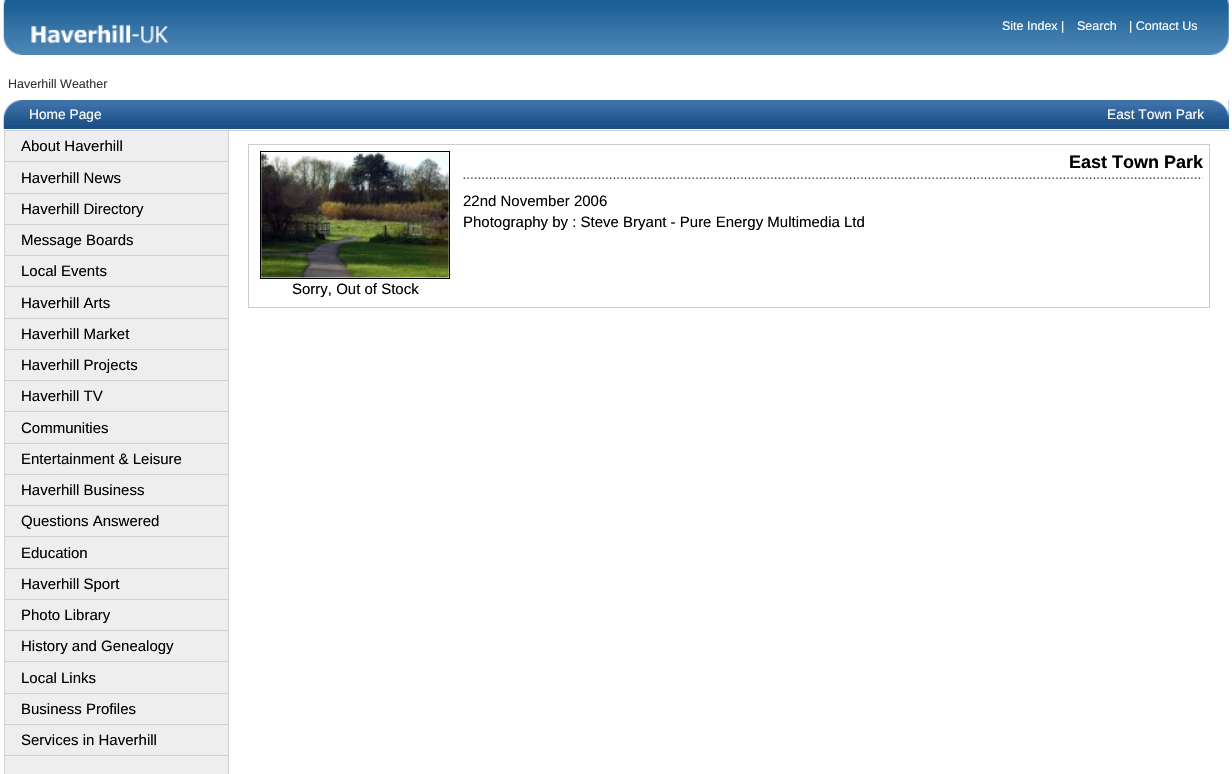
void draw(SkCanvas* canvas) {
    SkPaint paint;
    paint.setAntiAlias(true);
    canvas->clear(0xFFFFFFFF);
    canvas->drawImageRect(SkImages::DeferredFromEncodedData(SkData::MakeFromFileName("img1.png")), SkRect::MakeXYWH(3, 0, 1226, 55), SkSamplingOptions());
    canvas->drawImageRect(SkImages::DeferredFromEncodedData(SkData::MakeFromFileName("img2.png")), SkRect::MakeXYWH(31, 24, 138, 20), SkSamplingOptions());
    SkFont font1(fontMgr->matchFamilyStyle("Liberation Sans", SkFontStyle::Normal()), 12.5f);
    font1.setSubpixel(true);
    paint.setColor(0xFFFFFFFF);
    canvas->drawString("Site Index |", 1002, 30, font1, paint);
    canvas->drawString("Search", 1077, 30, font1, paint);
    canvas->drawString("| Contact Us", 1129, 30, font1, paint);
    paint.setColor(0xFF333333);
    canvas->drawString("Haverhill Weather", 8, 88, font1, paint);
    paint.setColor(0xFF20558B);
    canvas->drawRect(SkRect::MakeXYWH(4, 100, 1225, 29), paint);
    canvas->drawImageRect(SkImages::DeferredFromEncodedData(SkData::MakeFromFileName("img3.png")), SkRect::MakeXYWH(3, 100, 1226, 29), SkSamplingOptions());
    SkFont font2(fontMgr->matchFamilyStyle("Liberation Sans", SkFontStyle::Normal()), 13.75f);
    font2.setSubpixel(true);
    paint.setColor(0xFFFFFFFF);
    canvas->drawString("Home Page", 29, 119, font2, paint);
    canvas->drawString("East Town Park", 1107, 119, font2, paint);
    paint.setColor(0xFFEEEEEE);
    canvas->drawRect(SkRect::MakeXYWH(5, 131, 223, 643), paint);
    paint.setColor(0xFFD0D0D0);
    canvas->drawRect(SkRect::MakeXYWH(228, 130, 1, 644), paint);
    canvas->drawRect(SkRect::MakeXYWH(4, 130, 1, 644), paint);
    canvas->drawRect(SkRect::MakeXYWH(5, 130, 223, 1), paint);
    canvas->drawRect(SkRect::MakeXYWH(5, 161, 223, 1), paint);
    SkFont font3(fontMgr->matchFamilyStyle("Liberation Sans", SkFontStyle::Normal()), 15);
    font3.setSubpixel(true);
    paint.setColor(0xFF000000);
    canvas->drawString("About Haverhill", 21, 151, font3, paint);
    paint.setColor(0xFFD0D0D0);
    canvas->drawRect(SkRect::MakeXYWH(5, 193, 223, 1), paint);
    paint.setColor(0xFF000000);
    canvas->drawString("Haverhill News", 21, 183, font3, paint);
    paint.setColor(0xFFD0D0D0);
    canvas->drawRect(SkRect::MakeXYWH(5, 224, 223, 1), paint);
    paint.setColor(0xFF000000);
    canvas->drawString("Haverhill Directory", 21, 214, font3, paint);
    paint.setColor(0xFFD0D0D0);
    canvas->drawRect(SkRect::MakeXYWH(5, 255, 223, 1), paint);
    paint.setColor(0xFF000000);
    canvas->drawString("Message Boards", 21, 245, font3, paint);
    paint.setColor(0xFFD0D0D0);
    canvas->drawRect(SkRect::MakeXYWH(5, 286, 223, 1), paint);
    paint.setColor(0xFF000000);
    canvas->drawString("Local Events", 21, 276, font3, paint);
    paint.setColor(0xFFD0D0D0);
    canvas->drawRect(SkRect::MakeXYWH(5, 318, 223, 1), paint);
    paint.setColor(0xFF000000);
    canvas->drawString("Haverhill Arts", 21, 308, font3, paint);
    paint.setColor(0xFFD0D0D0);
    canvas->drawRect(SkRect::MakeXYWH(5, 349, 223, 1), paint);
    paint.setColor(0xFF000000);
    canvas->drawString("Haverhill Market", 21, 339, font3, paint);
    paint.setColor(0xFFD0D0D0);
    canvas->drawRect(SkRect::MakeXYWH(5, 380, 223, 1), paint);
    paint.setColor(0xFF000000);
    canvas->drawString("Haverhill Projects", 21, 370, font3, paint);
    paint.setColor(0xFFD0D0D0);
    canvas->drawRect(SkRect::MakeXYWH(5, 411, 223, 1), paint);
    paint.setColor(0xFF000000);
    canvas->drawString("Haverhill TV", 21, 401, font3, paint);
    paint.setColor(0xFFD0D0D0);
    canvas->drawRect(SkRect::MakeXYWH(5, 443, 223, 1), paint);
    paint.setColor(0xFF000000);
    canvas->drawString("Communities", 21, 433, font3, paint);
    paint.setColor(0xFFD0D0D0);
    canvas->drawRect(SkRect::MakeXYWH(5, 474, 223, 1), paint);
    paint.setColor(0xFF000000);
    canvas->drawString("Entertainment & Leisure", 21, 464, font3, paint);
    paint.setColor(0xFFD0D0D0);
    canvas->drawRect(SkRect::MakeXYWH(5, 505, 223, 1), paint);
    paint.setColor(0xFF000000);
    canvas->drawString("Haverhill Business", 21, 495, font3, paint);
    paint.setColor(0xFFD0D0D0);
    canvas->drawRect(SkRect::MakeXYWH(5, 536, 223, 1), paint);
    paint.setColor(0xFF000000);
    canvas->drawString("Questions Answered", 21, 526, font3, paint);
    paint.setColor(0xFFD0D0D0);
    canvas->drawRect(SkRect::MakeXYWH(5, 568, 223, 1), paint);
    paint.setColor(0xFF000000);
    canvas->drawString("Education", 21, 558, font3, paint);
    paint.setColor(0xFFD0D0D0);
    canvas->drawRect(SkRect::MakeXYWH(5, 599, 223, 1), paint);
    paint.setColor(0xFF000000);
    canvas->drawString("Haverhill Sport", 21, 589, font3, paint);
    paint.setColor(0xFFD0D0D0);
    canvas->drawRect(SkRect::MakeXYWH(5, 630, 223, 1), paint);
    paint.setColor(0xFF000000);
    canvas->drawString("Photo Library", 21, 620, font3, paint);
    paint.setColor(0xFFD0D0D0);
    canvas->drawRect(SkRect::MakeXYWH(5, 661, 223, 1), paint);
    paint.setColor(0xFF000000);
    canvas->drawString("History and Genealogy", 21, 651, font3, paint);
    paint.setColor(0xFFD0D0D0);
    canvas->drawRect(SkRect::MakeXYWH(5, 693, 223, 1), paint);
    paint.setColor(0xFF000000);
    canvas->drawString("Local Links", 21, 683, font3, paint);
    paint.setColor(0xFFD0D0D0);
    canvas->drawRect(SkRect::MakeXYWH(5, 724, 223, 1), paint);
    paint.setColor(0xFF000000);
    canvas->drawString("Business Profiles", 21, 714, font3, paint);
    paint.setColor(0xFFD0D0D0);
    canvas->drawRect(SkRect::MakeXYWH(5, 755, 223, 1), paint);
    paint.setColor(0xFF000000);
    canvas->drawString("Services in Haverhill", 21, 745, font3, paint);
    paint.setColor(0xFFD0D0D0);
    canvas->drawRect(SkRect::MakeXYWH(229, 130, 1000, 1), paint);
    paint.setStyle(SkPaint::kStroke_Style);
    paint.setStrokeWidth(1);
    paint.setColor(0xFFCCCCCC);
    canvas->drawRect(SkRect::MakeXYWH(248.5f, 144.5f, 961, 163), paint);
    canvas->drawImageRect(SkImages::DeferredFromEncodedData(SkData::MakeFromFileName("img4.png")), SkRect::MakeXYWH(463, 177, 740, 2), SkSamplingOptions());
    SkFont font4(fontMgr->matchFamilyStyle("Liberation Sans", SkFontStyle::Bold()), 18);
    font4.setSubpixel(true);
    paint.setStyle(SkPaint::kFill_Style);
    paint.setColor(0xFF000000);
    canvas->drawString("East Town Park", 1069, 168, font4, paint);
    canvas->drawString("22nd November 2006", 463, 206, font3, paint);
    canvas->drawString("Photography by : Steve Bryant - Pure Energy Multimedia Ltd", 463, 227, font3, paint);
    paint.setStyle(SkPaint::kStroke_Style);
    canvas->drawRect(SkRect::MakeXYWH(260.5f, 151.5f, 189, 127), paint);
    canvas->drawImageRect(SkImages::DeferredFromEncodedData(SkData::MakeFromFileName("img5.png")), SkRect::MakeXYWH(261, 152, 188, 126), SkSamplingOptions());
    paint.setStyle(SkPaint::kFill_Style);
    canvas->drawString("Sorry, Out of Stock", 292, 294, font3, paint);
}
